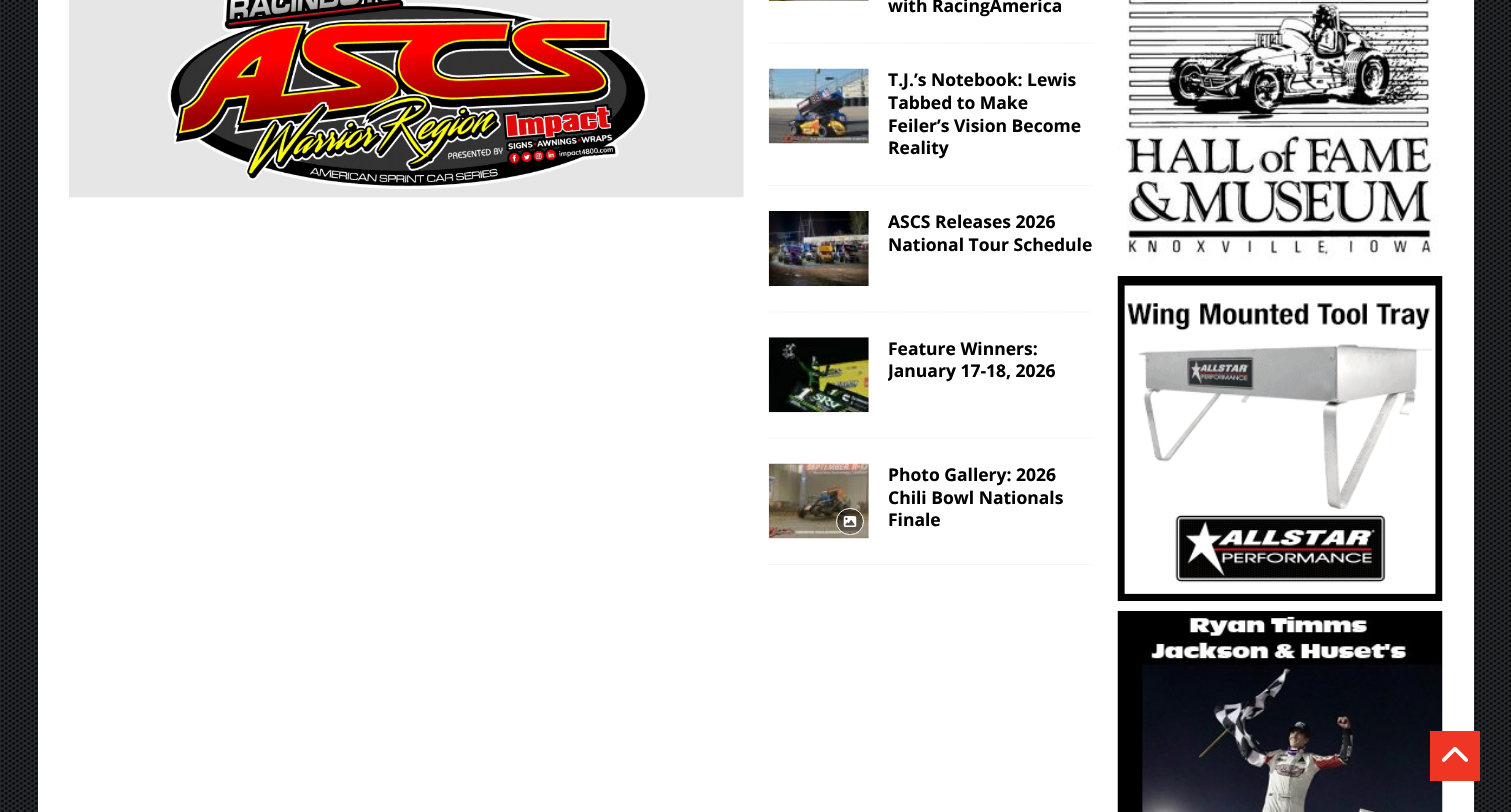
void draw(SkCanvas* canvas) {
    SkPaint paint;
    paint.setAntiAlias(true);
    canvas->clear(0xFFFFFFFF);
    canvas->drawImageRect(SkImages::DeferredFromEncodedData(SkData::MakeFromFileName("img1.png")), SkRect::MakeXYWH(0, 0, 1511, 812), SkSamplingOptions());
    paint.setColor(0xFFFFFFFF);
    canvas->drawRect(SkRect::MakeXYWH(38, 0, 1436, 812), paint);
    canvas->drawImageRect(SkImages::DeferredFromEncodedData(SkData::MakeFromFileName("img2.png")), SkRect::MakeXYWH(69, 0, 675, 198), SkSamplingOptions());
    paint.setStyle(SkPaint::kStroke_Style);
    paint.setStrokeWidth(1.2f);
    paint.setColor(0xFFEBEBEB);
    paint.setPathEffect(SkDashPathEffect::Make({{1.25f, 1.25f}}, 0));
    canvas->drawPath(SkPathBuilder().moveTo(769, 43).lineTo(1092.5f, 43).detach(), paint);
    paint.setPathEffect(nullptr);
    canvas->drawImageRect(SkImages::DeferredFromEncodedData(SkData::MakeFromFileName("img3.png")), SkRect::MakeXYWH(768, 0, 101, 1), SkSamplingOptions());
    SkFont font1(fontMgr->matchFamilyStyle("Open Sans", SkFontStyle::Bold()), 17.5f);
    font1.setSubpixel(true);
    paint.setStyle(SkPaint::kFill_Style);
    paint.setColor(0xFF000000);
    canvas->drawString("with RacingAmerica", 888, 12, font1, paint);
    paint.setStyle(SkPaint::kStroke_Style);
    paint.setColor(0xFFEBEBEB);
    paint.setPathEffect(SkDashPathEffect::Make({{1.25f, 1.25f}}, 0));
    canvas->drawPath(SkPathBuilder().moveTo(769, 185.5f).lineTo(1092.5f, 185.5f).detach(), paint);
    paint.setPathEffect(nullptr);
    canvas->drawImageRect(SkImages::DeferredFromEncodedData(SkData::MakeFromFileName("img4.png")), SkRect::MakeXYWH(768, 68, 101, 76), SkSamplingOptions());
    paint.setStyle(SkPaint::kFill_Style);
    paint.setColor(0xFF000000);
    canvas->drawString("T.J.’s Notebook: Lewis", 888, 86, font1, paint);
    canvas->drawString("Tabbed to Make", 888, 109, font1, paint);
    canvas->drawString("Feiler’s Vision Become", 888, 132, font1, paint);
    canvas->drawString("Reality", 888, 154, font1, paint);
    paint.setStyle(SkPaint::kStroke_Style);
    paint.setColor(0xFFEBEBEB);
    paint.setPathEffect(SkDashPathEffect::Make({{1.25f, 1.25f}}, 0));
    canvas->drawPath(SkPathBuilder().moveTo(769, 312).lineTo(1092.5f, 312).detach(), paint);
    paint.setPathEffect(nullptr);
    canvas->drawImageRect(SkImages::DeferredFromEncodedData(SkData::MakeFromFileName("img5.png")), SkRect::MakeXYWH(768, 211, 101, 75), SkSamplingOptions());
    paint.setStyle(SkPaint::kFill_Style);
    paint.setColor(0xFF000000);
    canvas->drawString("ASCS Releases 2026", 888, 228, font1, paint);
    canvas->drawString("National Tour Schedule", 888, 251, font1, paint);
    paint.setStyle(SkPaint::kStroke_Style);
    paint.setColor(0xFFEBEBEB);
    paint.setPathEffect(SkDashPathEffect::Make({{1.25f, 1.25f}}, 0));
    canvas->drawPath(SkPathBuilder().moveTo(769, 438).lineTo(1092.5f, 438).detach(), paint);
    paint.setPathEffect(nullptr);
    canvas->drawImageRect(SkImages::DeferredFromEncodedData(SkData::MakeFromFileName("img6.png")), SkRect::MakeXYWH(768, 337, 101, 76), SkSamplingOptions());
    paint.setStyle(SkPaint::kFill_Style);
    paint.setColor(0xFF000000);
    canvas->drawString("Feature Winners:", 888, 355, font1, paint);
    canvas->save();
    canvas->clipRect(SkRect::MakeXYWH(888, 338, 205, 45));
    canvas->drawString("January 17-18, 2026", 888, 377, font1, paint);
    canvas->restore();
    canvas->save();
    canvas->clipRect(SkRect::MakeXYWH(769, 0, 324, 565));
    paint.setStyle(SkPaint::kStroke_Style);
    paint.setColor(0xFFEBEBEB);
    paint.setPathEffect(SkDashPathEffect::Make({{1.25f, 1.25f}}, 0));
    canvas->drawPath(SkPathBuilder().moveTo(769, 564.5f).lineTo(1092.5f, 564.5f).detach(), paint);
    paint.setPathEffect(nullptr);
    canvas->restore();
    canvas->drawImageRect(SkImages::DeferredFromEncodedData(SkData::MakeFromFileName("img7.png")), SkRect::MakeXYWH(768, 463, 101, 76), SkSamplingOptions());
    paint.setStyle(SkPaint::kFill_Style);
    paint.setColor(0x66000000);
    canvas->drawRoundRect(SkRect::MakeXYWH(836.5f, 508.5f, 27, 26), 13, 13, paint);
    paint.setStyle(SkPaint::kStroke_Style);
    paint.setStrokeWidth(1);
    paint.setColor(0xFFFFFFFF);
    canvas->drawRoundRect(SkRect::MakeXYWH(836.5f, 508.5f, 27, 26), 13, 13, paint);
    canvas->drawImageRect(SkImages::DeferredFromEncodedData(SkData::MakeFromFileName("img8.png")), SkRect::MakeXYWH(843, 516, 14, 11), SkSamplingOptions());
    paint.setStyle(SkPaint::kFill_Style);
    paint.setColor(0xFF000000);
    canvas->drawString("Photo Gallery: 2026", 888, 481, font1, paint);
    canvas->drawString("Chili Bowl Nationals", 888, 504, font1, paint);
    canvas->drawString("Finale", 888, 526, font1, paint);
    canvas->drawImageRect(SkImages::DeferredFromEncodedData(SkData::MakeFromFileName("img9.png")), SkRect::MakeXYWH(1119, 0, 320, 261), SkSamplingOptions());
    canvas->drawImageRect(SkImages::DeferredFromEncodedData(SkData::MakeFromFileName("img10.png")), SkRect::MakeXYWH(1117, 276, 326, 325), SkSamplingOptions());
    canvas->drawImageRect(SkImages::DeferredFromEncodedData(SkData::MakeFromFileName("img11.png")), SkRect::MakeXYWH(1117, 611, 326, 201), SkSamplingOptions());
    paint.setColor(0xFFEF3624);
    canvas->drawRect(SkRect::MakeXYWH(1430, 731, 50, 50), paint);
    canvas->drawImageRect(SkImages::DeferredFromEncodedData(SkData::MakeFromFileName("img12.png")), SkRect::MakeXYWH(1441, 746, 28, 16), SkSamplingOptions());
}
